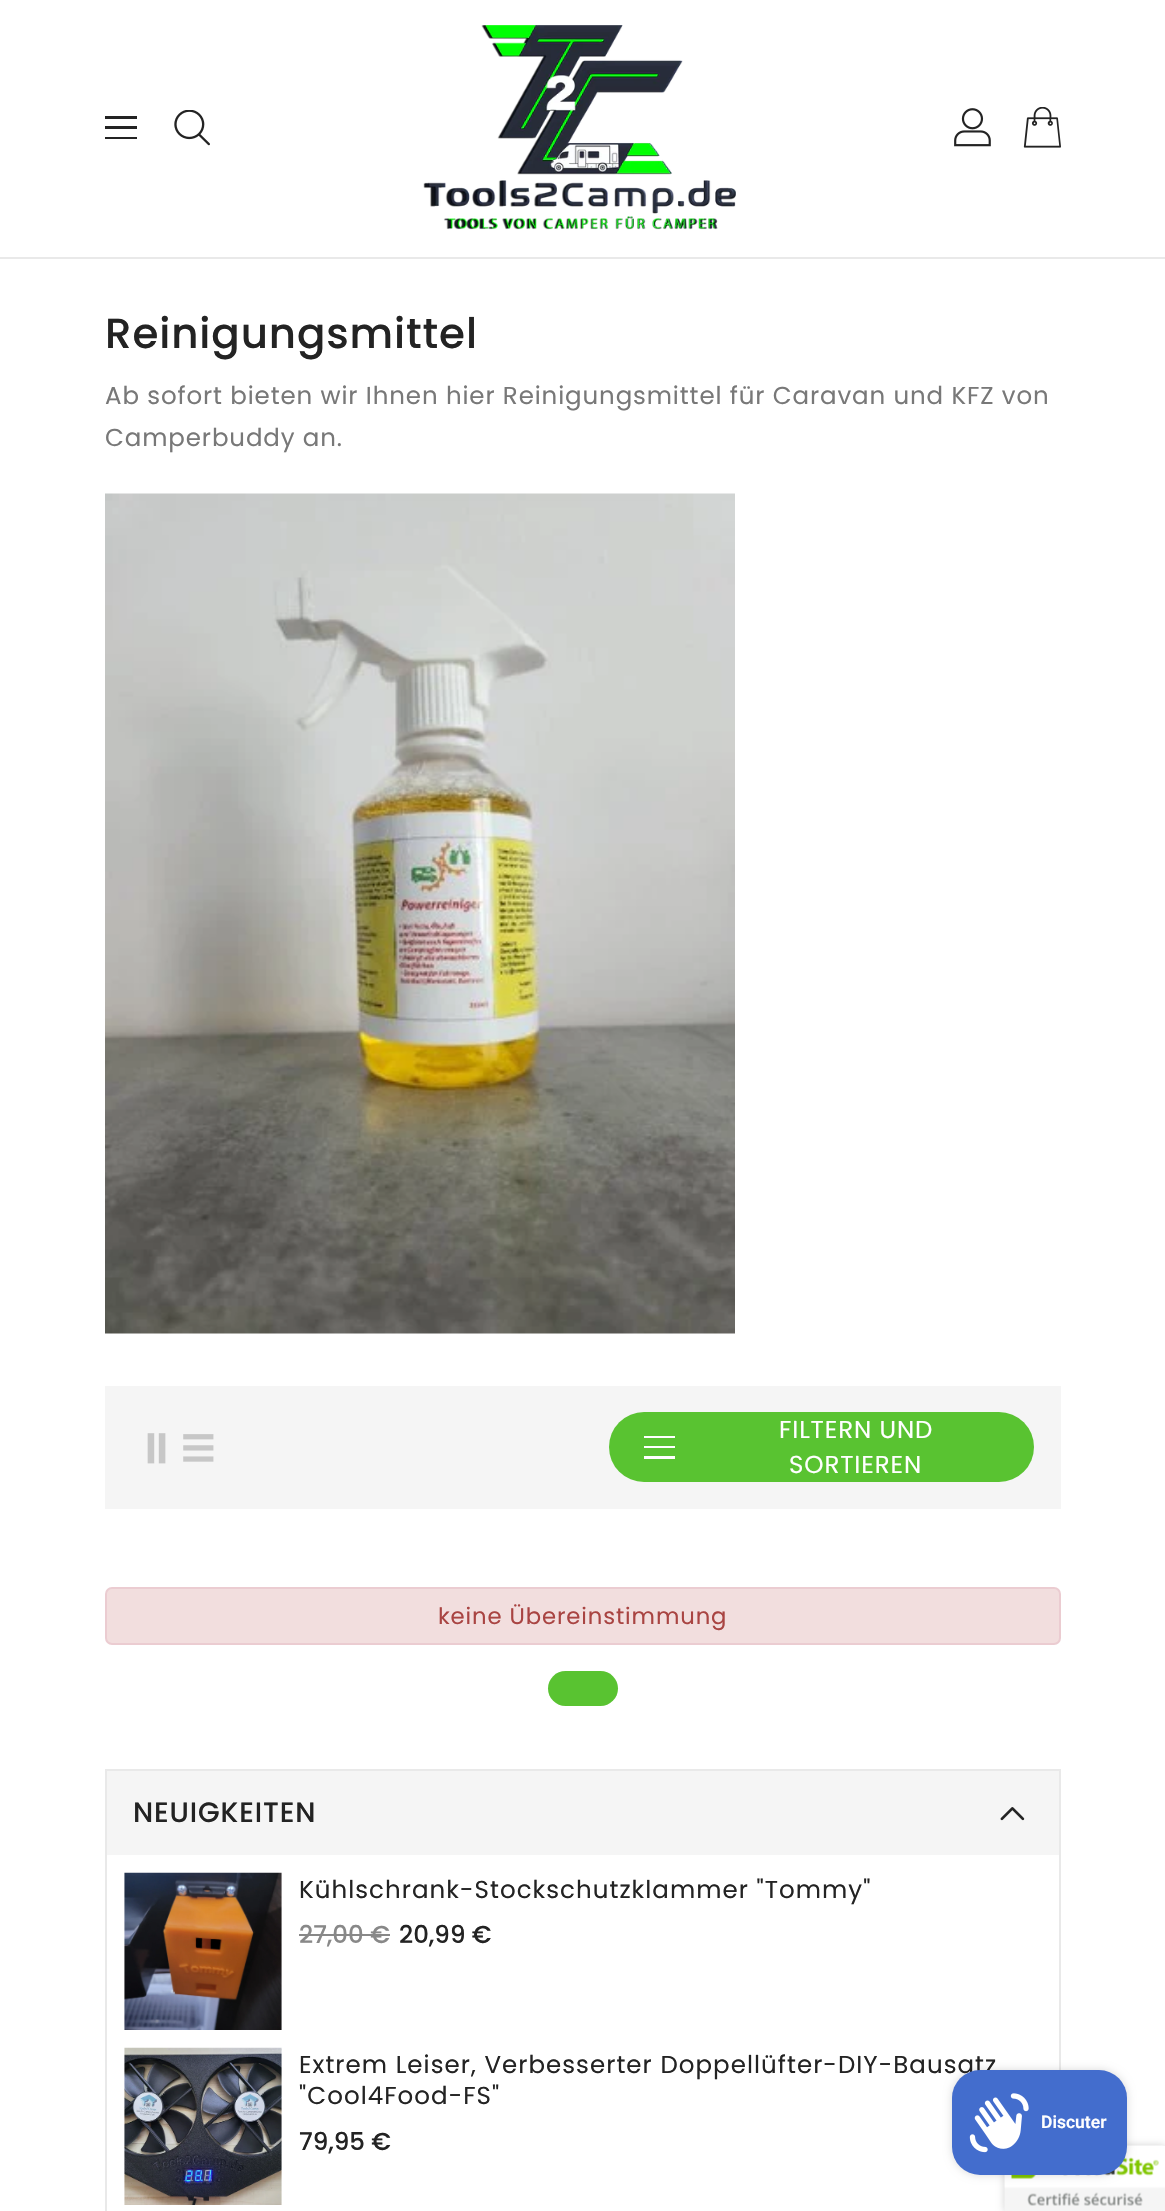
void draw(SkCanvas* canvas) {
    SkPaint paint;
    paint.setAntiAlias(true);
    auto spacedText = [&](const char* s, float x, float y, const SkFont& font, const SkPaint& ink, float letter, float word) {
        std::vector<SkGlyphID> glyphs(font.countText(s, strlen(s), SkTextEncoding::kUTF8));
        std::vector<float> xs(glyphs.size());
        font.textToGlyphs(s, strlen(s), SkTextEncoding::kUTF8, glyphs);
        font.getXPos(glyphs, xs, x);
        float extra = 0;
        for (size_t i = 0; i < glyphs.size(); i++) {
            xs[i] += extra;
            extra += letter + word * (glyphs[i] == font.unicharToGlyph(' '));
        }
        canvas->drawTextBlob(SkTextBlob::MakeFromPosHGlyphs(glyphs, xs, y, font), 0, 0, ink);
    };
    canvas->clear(0xFFFFFFFF);
    paint.setColor(0xFFE9E9E9);
    canvas->drawRect(SkRect::MakeXYWH(0, 257, 1165, 2), paint);
    paint.setColor(0xFF232323);
    canvas->drawRect(SkRect::MakeXYWH(105, 116, 32, 3), paint);
    canvas->drawRect(SkRect::MakeXYWH(105, 126, 32, 3), paint);
    canvas->drawRect(SkRect::MakeXYWH(105, 137, 32, 2), paint);
    canvas->drawImageRect(SkImages::DeferredFromEncodedData(SkData::MakeFromFileName("img1.png")), SkRect::MakeXYWH(174, 110, 36, 36), SkSamplingOptions());
    canvas->drawImageRect(SkImages::DeferredFromEncodedData(SkData::MakeFromFileName("img2.png")), SkRect::MakeXYWH(423, 25, 313, 205), SkSamplingOptions());
    canvas->drawImageRect(SkImages::DeferredFromEncodedData(SkData::MakeFromFileName("img3.png")), SkRect::MakeXYWH(954, 108, 37, 39), SkSamplingOptions());
    canvas->drawImageRect(SkImages::DeferredFromEncodedData(SkData::MakeFromFileName("img4.png")), SkRect::MakeXYWH(1023, 107, 38, 41), SkSamplingOptions());
    SkFont font1(fontMgr->matchFamilyStyle("Poppins", SkFontStyle(500, SkFontStyle::kNormal_Width, SkFontStyle::kUpright_Slant)), 42);
    font1.setSubpixel(true);
    spacedText("Reinigungsmittel", 105, 348, font1, paint, 0.88f, 0);
    SkFont font2(fontMgr->matchFamilyStyle("Poppins", SkFontStyle::Normal()), 24.5f);
    font2.setSubpixel(true);
    paint.setColor(0xFF787878);
    spacedText("Ab sofort bieten wir Ihnen hier Reinigungsmittel für Caravan und KFZ von", 105, 404, font2, paint, 0.88f, 0);
    spacedText("Camperbuddy an.", 105, 446, font2, paint, 0.88f, 0);
    canvas->drawImageRect(SkImages::DeferredFromEncodedData(SkData::MakeFromFileName("img5.png")), SkRect::MakeXYWH(105, 493, 630, 841), SkSamplingOptions());
    paint.setColor(0xFFF5F5F5);
    canvas->drawRect(SkRect::MakeXYWH(105, 1386, 956, 123), paint);
    canvas->drawImageRect(SkImages::DeferredFromEncodedData(SkData::MakeFromFileName("img6.png")), SkRect::MakeXYWH(147, 1433, 19, 31), SkSamplingOptions());
    canvas->drawImageRect(SkImages::DeferredFromEncodedData(SkData::MakeFromFileName("img7.png")), SkRect::MakeXYWH(183, 1434, 31, 28), SkSamplingOptions());
    paint.setColor(0xFF59C331);
    canvas->drawRoundRect(SkRect::MakeXYWH(609, 1412, 425, 70), 35, 35, paint);
    paint.setColor(0xFFFFFFFF);
    canvas->drawRect(SkRect::MakeXYWH(644, 1436, 31, 2), paint);
    canvas->drawRect(SkRect::MakeXYWH(644, 1446, 31, 2), paint);
    canvas->drawRect(SkRect::MakeXYWH(644, 1456, 31, 3), paint);
    spacedText("FILTERN UND", 779, 1438, font2, paint, 0.88f, 0);
    spacedText("SORTIEREN", 789, 1473, font2, paint, 0.88f, 0);
    paint.setColor(0xFFF2DEDE);
    canvas->drawRoundRect(SkRect::MakeXYWH(106, 1588, 954, 56), 6, 6, paint);
    paint.setStyle(SkPaint::kStroke_Style);
    paint.setStrokeWidth(2);
    paint.setColor(0xFFEBCCD1);
    canvas->drawRoundRect(SkRect::MakeXYWH(106, 1588, 954, 56), 6, 6, paint);
    SkFont font3(fontMgr->matchFamilyStyle("Poppins", SkFontStyle::Normal()), 22.75f);
    font3.setSubpixel(true);
    paint.setStyle(SkPaint::kFill_Style);
    paint.setColor(0xFFA94442);
    spacedText("keine Übereinstimmung", 438, 1624, font3, paint, 0.88f, 0);
    paint.setColor(0xFF59C331);
    canvas->drawRoundRect(SkRect::MakeXYWH(548, 1671, 70, 35), 17.5f, 17.5f, paint);
    paint.setStyle(SkPaint::kStroke_Style);
    paint.setColor(0xFFE9E9E9);
    canvas->drawRect(SkRect::MakeXYWH(106, 1770, 954, 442), paint);
    paint.setStyle(SkPaint::kFill_Style);
    paint.setColor(0xFFF5F5F5);
    canvas->drawRect(SkRect::MakeXYWH(107, 1771, 952, 84), paint);
    SkFont font4(fontMgr->matchFamilyStyle("Poppins", SkFontStyle(500, SkFontStyle::kNormal_Width, SkFontStyle::kUpright_Slant)), 28);
    font4.setSubpixel(true);
    paint.setColor(0xFF232323);
    spacedText("NEUIGKEITEN", 133, 1822, font4, paint, 0.88f, 0);
    canvas->drawImageRect(SkImages::DeferredFromEncodedData(SkData::MakeFromFileName("img8.png")), SkRect::MakeXYWH(1000, 1807, 25, 14), SkSamplingOptions());
    canvas->drawImageRect(SkImages::DeferredFromEncodedData(SkData::MakeFromFileName("img9.png")), SkRect::MakeXYWH(124, 1872, 158, 158), SkSamplingOptions());
    spacedText("Kühlschrank-Stockschutzklammer \"Tommy\"", 299, 1898, font2, paint, 1.05f, 0);
    SkFont font5(fontMgr->matchFamilyStyle("Poppins", SkFontStyle(500, SkFontStyle::kNormal_Width, SkFontStyle::kUpright_Slant)), 24.5f);
    font5.setSubpixel(true);
    paint.setColor(0xFF888888);
    canvas->drawString("27,00 €", 299, 1943, font5, paint);
    canvas->drawRect(SkRect::MakeXYWH(299, 1934, 91, 2), paint);
    paint.setColor(0xFF232323);
    canvas->drawString("20,99 €", 399, 1943, font5, paint);
    canvas->drawImageRect(SkImages::DeferredFromEncodedData(SkData::MakeFromFileName("img10.png")), SkRect::MakeXYWH(124, 2047, 158, 158), SkSamplingOptions());
    spacedText("Extrem Leiser, Verbesserter Doppellüfter-DIY-Bausatz", 299, 2073, font2, paint, 1.05f, 0);
    spacedText("\"Cool4Food-FS\"", 299, 2104, font2, paint, 1.05f, 0);
    canvas->drawString("79,95 €", 299, 2150, font5, paint);
    paint.setColor(0x33000000);
    paint.setMaskFilter(SkMaskFilter::MakeBlur(kNormal_SkBlurStyle, 4.5f));
    canvas->drawRoundRect(SkRect::MakeXYWH(1005, 2146, 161, 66), 4, 4, paint);
    paint.setMaskFilter(nullptr);
    paint.setColor(0xFFFFFFFF);
    canvas->drawRect(SkRect::MakeXYWH(1162, 2146, 3, 4), paint);
    canvas->drawImageRect(SkImages::DeferredFromEncodedData(SkData::MakeFromFileName("img12.png")), SkRect::MakeXYWH(1004, 2145, 161, 66), SkSamplingOptions());
    paint.setColor(0x26000000);
    paint.setMaskFilter(SkMaskFilter::MakeBlur(kNormal_SkBlurStyle, 4.5f));
    canvas->drawRoundRect(SkRect::MakeXYWH(952, 2070, 175, 105), 28, 28, paint);
    paint.setMaskFilter(nullptr);
    paint.setColor(0xFF436DCD);
    canvas->drawRoundRect(SkRect::MakeXYWH(952, 2070, 175, 105), 28, 28, paint);
    canvas->drawImageRect(SkImages::DeferredFromEncodedData(SkData::MakeFromFileName("img11.png")), SkRect::MakeXYWH(969, 2093, 60, 60), SkSamplingOptions());
    SkFont font6(fontMgr->matchFamilyStyle("Roboto", SkFontStyle(600, SkFontStyle::kNormal_Width, SkFontStyle::kUpright_Slant)), 17.5f);
    font6.setSubpixel(true);
    paint.setColor(0xFFFFFFFF);
    canvas->drawString("Discuter", 1041, 2128, font6, paint);
}
